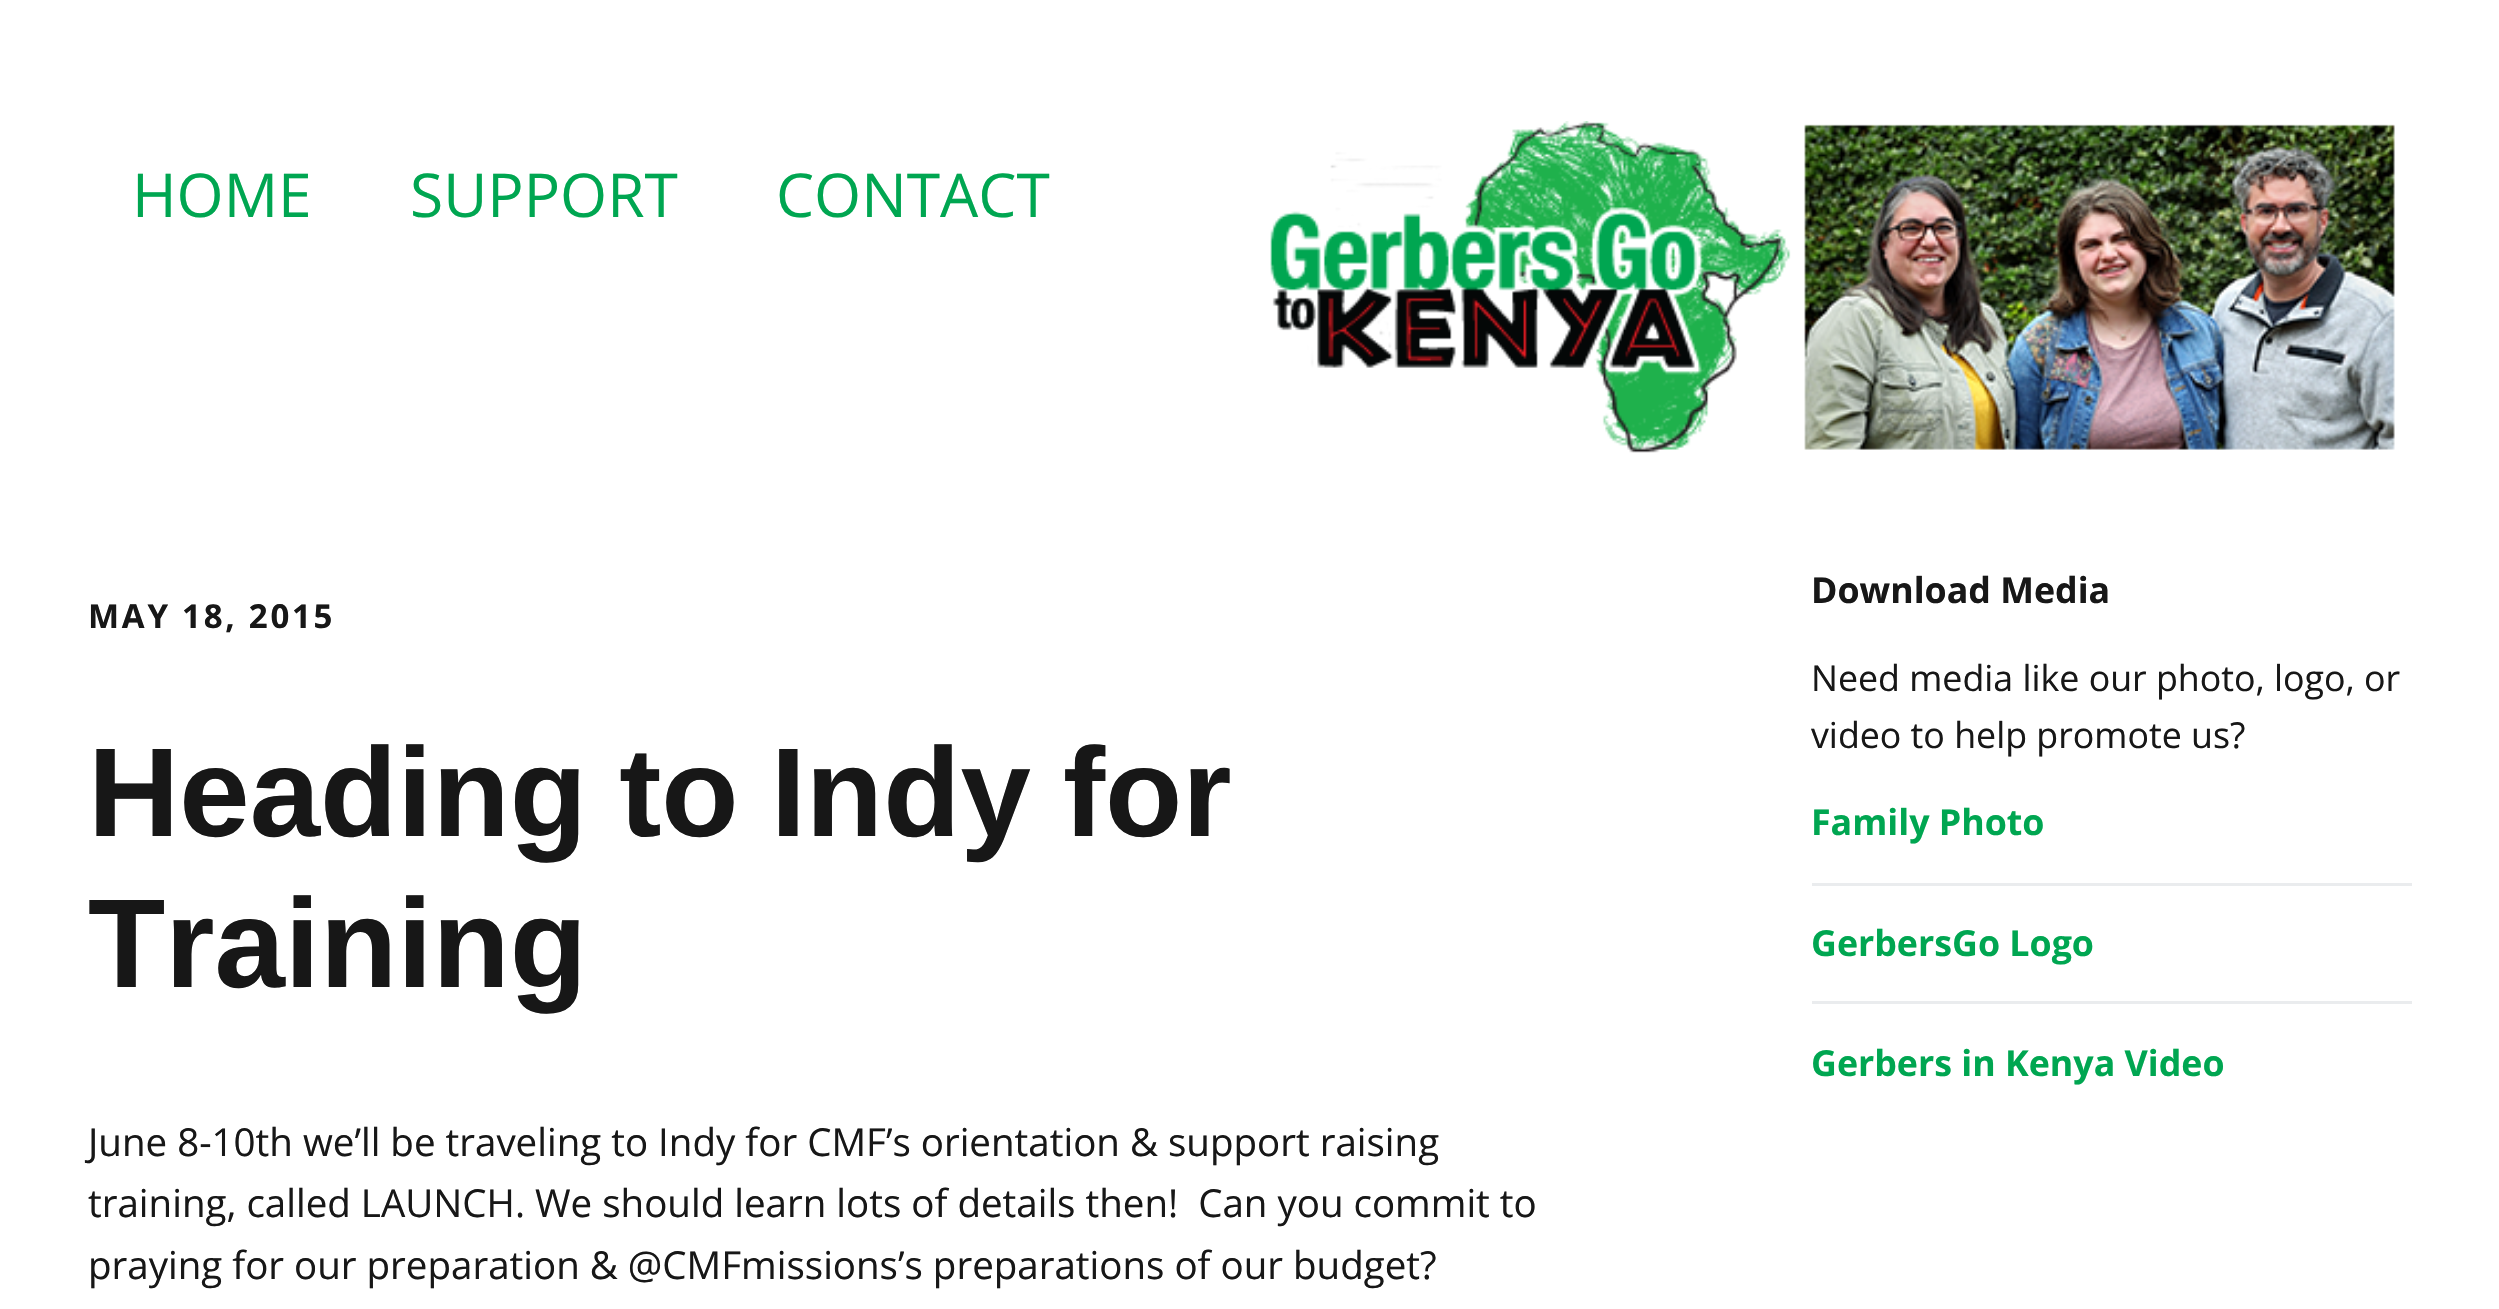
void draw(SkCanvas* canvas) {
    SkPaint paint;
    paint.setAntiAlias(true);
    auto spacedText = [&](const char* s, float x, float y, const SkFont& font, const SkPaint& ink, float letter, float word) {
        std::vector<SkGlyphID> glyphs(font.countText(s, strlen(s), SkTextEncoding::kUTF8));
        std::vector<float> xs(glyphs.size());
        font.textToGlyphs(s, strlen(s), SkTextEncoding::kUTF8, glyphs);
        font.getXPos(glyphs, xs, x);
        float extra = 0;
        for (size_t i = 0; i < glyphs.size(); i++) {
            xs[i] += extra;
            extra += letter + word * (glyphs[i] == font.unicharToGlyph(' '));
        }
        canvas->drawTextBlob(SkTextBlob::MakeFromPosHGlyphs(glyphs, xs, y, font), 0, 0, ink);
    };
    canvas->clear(0xFFFFFFFF);
    SkFont font1(fontMgr->matchFamilyStyle("Open Sans", SkFontStyle::Normal()), 60.5f);
    font1.setSubpixel(true);
    paint.setColor(0xFF00A651);
    canvas->drawString("HOME", 132, 217, font1, paint);
    canvas->drawString("SUPPORT", 410, 217, font1, paint);
    canvas->drawString("CONTACT", 776, 217, font1, paint);
    canvas->drawImageRect(SkImages::DeferredFromEncodedData(SkData::MakeFromFileName("img1.png")), SkRect::MakeXYWH(1270, 121, 1125, 332), SkSamplingOptions());
    SkFont font2(fontMgr->matchFamilyStyle("Open Sans", SkFontStyle::Bold()), 33);
    font2.setSubpixel(true);
    paint.setColor(0xFF171717);
    spacedText("MAY 18, 2015", 88, 628, font2, paint, 2.75f, 0);
    SkFont font3(fontMgr->matchFamilyStyle("Liberation Sans", SkFontStyle::Bold()), 126.5f);
    font3.setSubpixel(true);
    spacedText("Heading to Indy for", 88, 836, font3, paint, 0, -3);
    canvas->drawString("Training", 88, 987, font3, paint);
    SkFont font4(fontMgr->matchFamilyStyle("Open Sans", SkFontStyle::Normal()), 38.5f);
    font4.setSubpixel(true);
    canvas->drawString("June 8-10th we’ll be traveling to Indy for CMF’s orientation & support raising", 88, 1156, font4, paint);
    canvas->drawString("training, called LAUNCH. We should learn lots of details then!  Can you commit to", 88, 1217, font4, paint);
    canvas->drawString("praying for our preparation & @CMFmissions’s preparations of our budget?", 88, 1279, font4, paint);
    SkFont font5(fontMgr->matchFamilyStyle("Open Sans", SkFontStyle::Bold()), 35.75f);
    font5.setSubpixel(true);
    canvas->drawString("Download Media", 1811, 603, font5, paint);
    SkFont font6(fontMgr->matchFamilyStyle("Open Sans", SkFontStyle::Normal()), 35.75f);
    font6.setSubpixel(true);
    canvas->drawString("Need media like our photo, logo, or", 1811, 691, font6, paint);
    canvas->drawString("video to help promote us?", 1811, 748, font6, paint);
    paint.setColor(0xFFEAECEE);
    canvas->drawRect(SkRect::MakeXYWH(1812, 883, 600, 3), paint);
    paint.setColor(0xFF00A651);
    canvas->drawString("Family Photo", 1811, 835, font5, paint);
    paint.setColor(0xFFEAECEE);
    canvas->drawRect(SkRect::MakeXYWH(1812, 1001, 600, 3), paint);
    paint.setColor(0xFF00A651);
    canvas->drawString("GerbersGo Logo", 1811, 956, font5, paint);
    canvas->drawString("Gerbers in Kenya Video", 1811, 1076, font5, paint);
}
